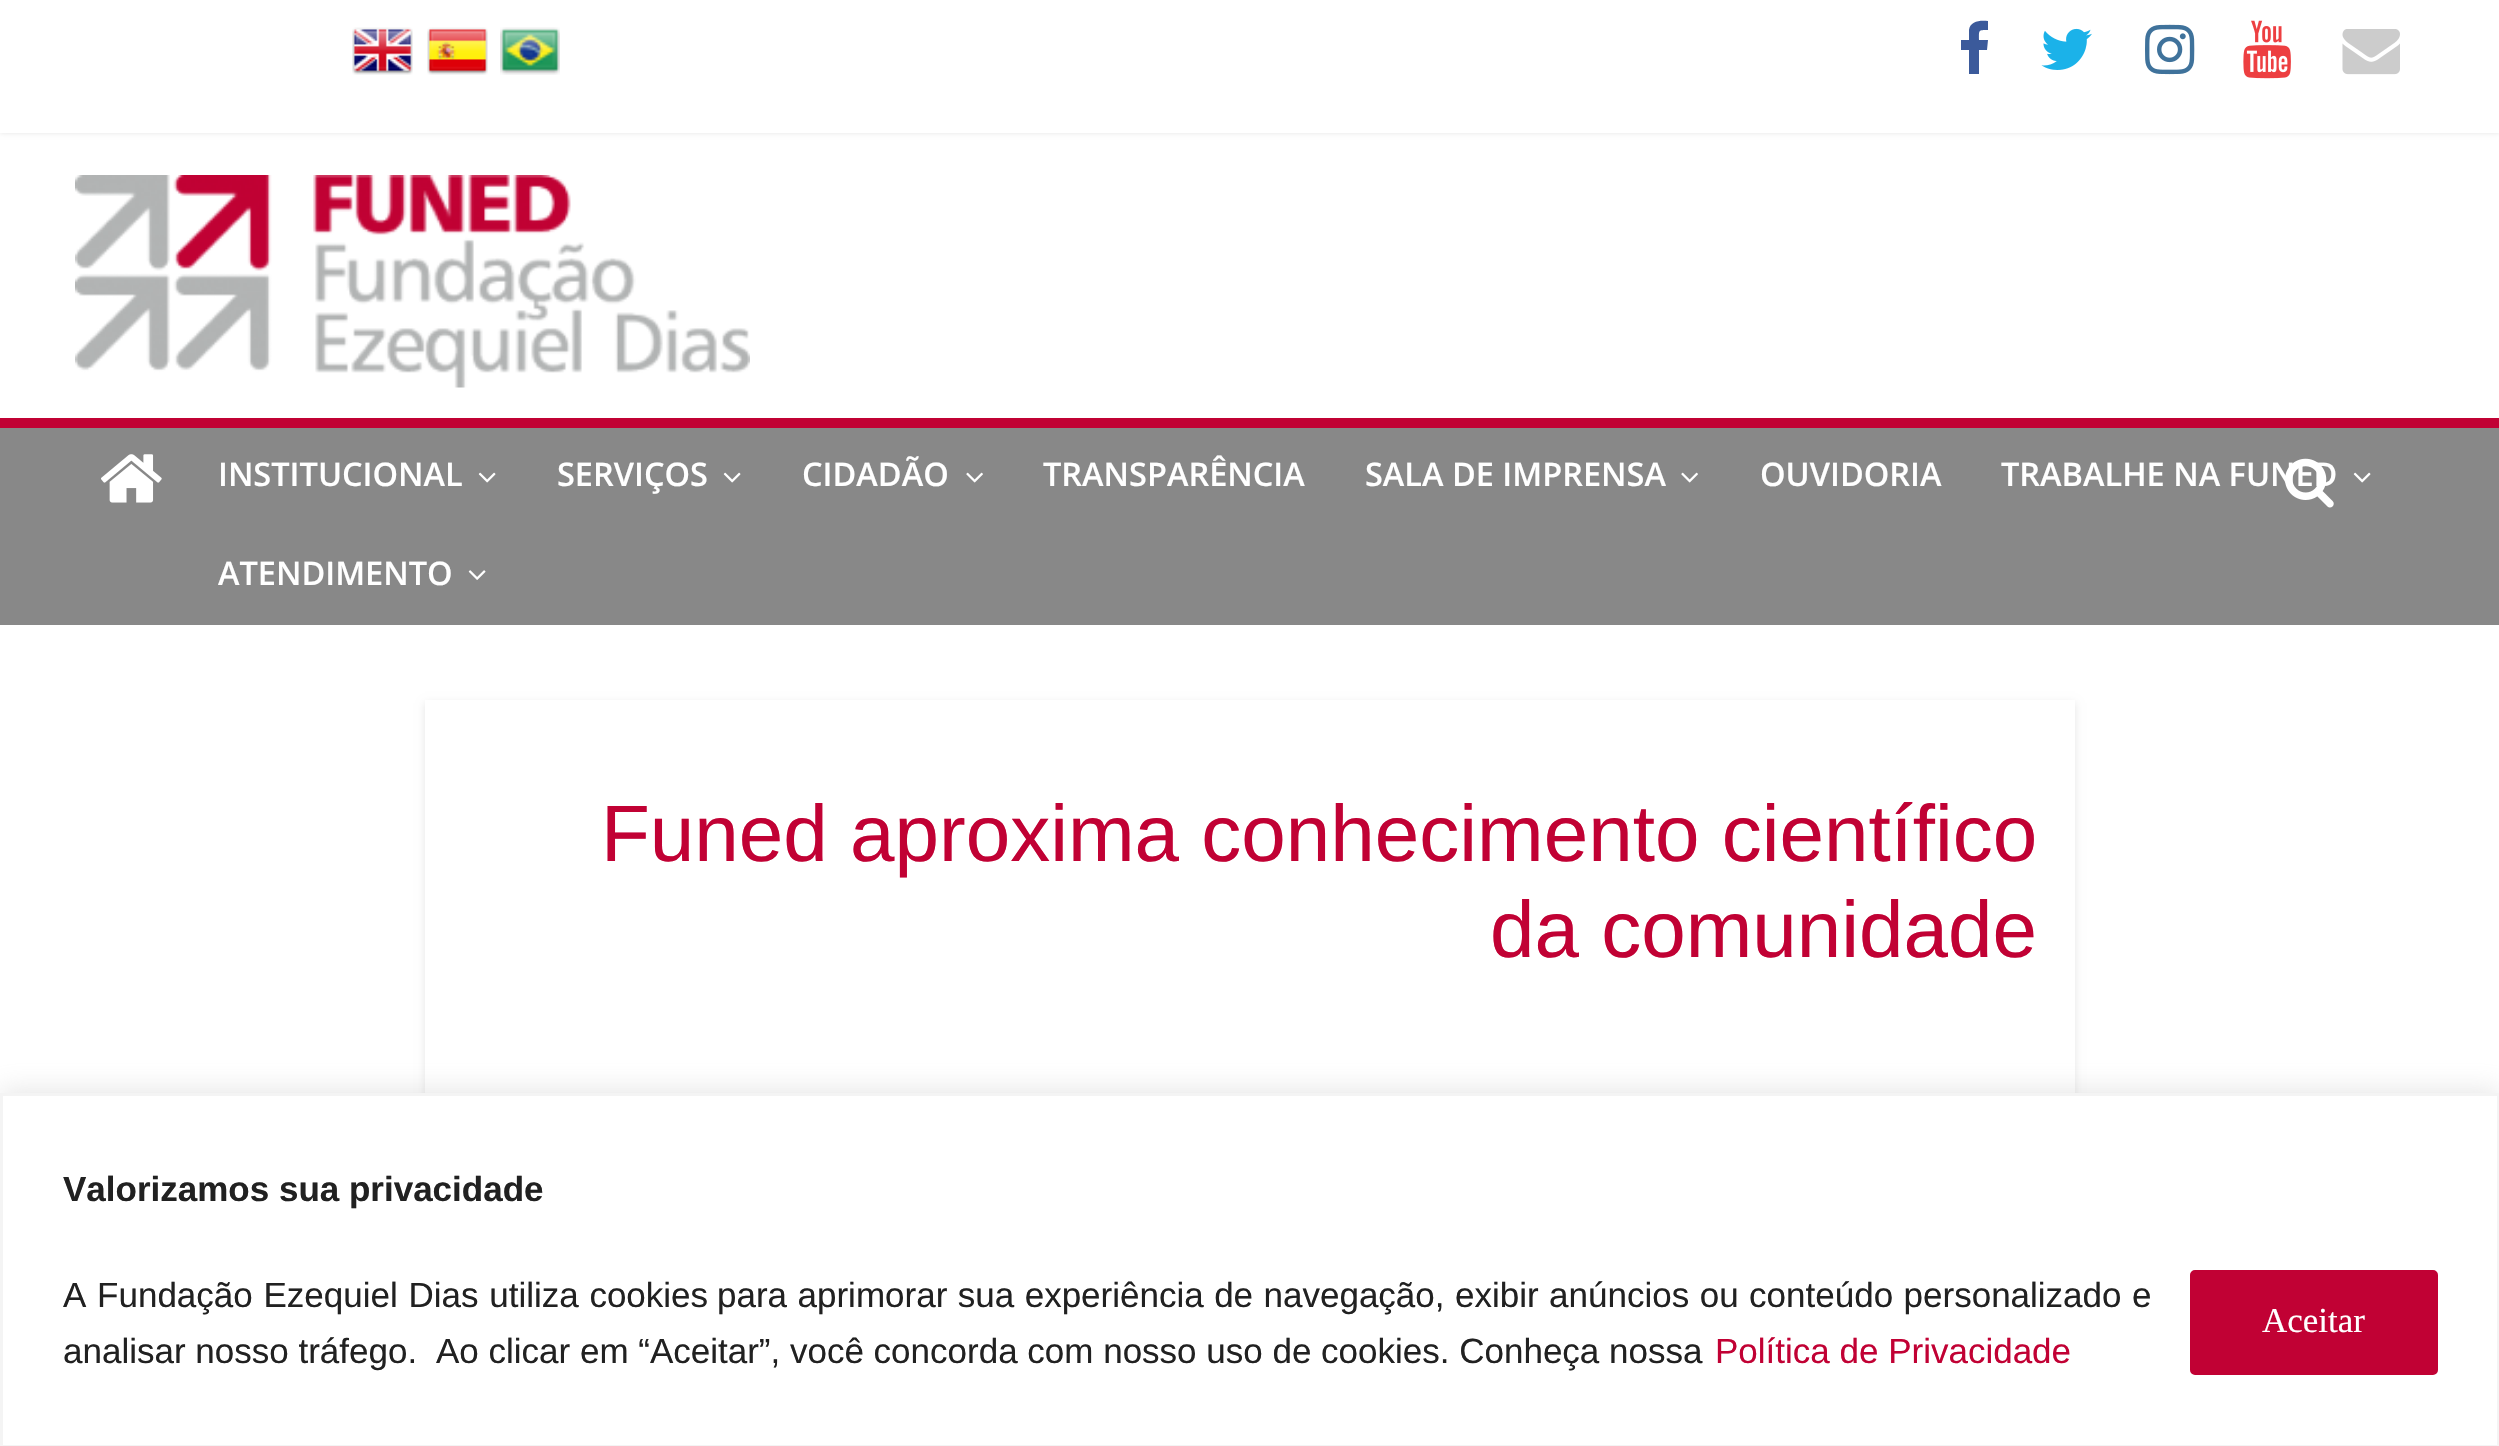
void draw(SkCanvas* canvas) {
    SkPaint paint;
    paint.setAntiAlias(true);
    auto spacedText = [&](const char* s, float x, float y, const SkFont& font, const SkPaint& ink, float letter, float word) {
        std::vector<SkGlyphID> glyphs(font.countText(s, strlen(s), SkTextEncoding::kUTF8));
        std::vector<float> xs(glyphs.size());
        font.textToGlyphs(s, strlen(s), SkTextEncoding::kUTF8, glyphs);
        font.getXPos(glyphs, xs, x);
        float extra = 0;
        for (size_t i = 0; i < glyphs.size(); i++) {
            xs[i] += extra;
            extra += letter + word * (glyphs[i] == font.unicharToGlyph(' '));
        }
        canvas->drawTextBlob(SkTextBlob::MakeFromPosHGlyphs(glyphs, xs, y, font), 0, 0, ink);
    };
    canvas->clear(0xFFFFFFFF);
    paint.setColor(0x1A000000);
    paint.setMaskFilter(SkMaskFilter::MakeBlur(kNormal_SkBlurStyle, 2.5f));
    canvas->drawRect(SkRect::MakeXYWH(0, 0, 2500, 133), paint);
    paint.setMaskFilter(nullptr);
    paint.setColor(0xFFFFFFFF);
    canvas->drawRect(SkRect::MakeXYWH(0, 0, 2499, 133), paint);
    canvas->drawImageRect(SkImages::DeferredFromEncodedData(SkData::MakeFromFileName("img1.png")), SkRect::MakeXYWH(352, 27, 61, 48), SkSamplingOptions());
    canvas->drawImageRect(SkImages::DeferredFromEncodedData(SkData::MakeFromFileName("img2.png")), SkRect::MakeXYWH(427, 27, 61, 48), SkSamplingOptions());
    canvas->drawImageRect(SkImages::DeferredFromEncodedData(SkData::MakeFromFileName("img3.png")), SkRect::MakeXYWH(500, 27, 60, 48), SkSamplingOptions());
    paint.setColor(0xFF3B5A9B);
    canvas->drawPath(SkPathBuilder().moveTo(1988, 21).lineTo(1988, 30).cubicTo(1978, 30, 1979, 30, 1979, 40).lineTo(1988, 40).lineTo(1987, 50).lineTo(1979, 50).lineTo(1979, 74).lineTo(1969, 74).lineTo(1969, 50).lineTo(1961, 50).lineTo(1961, 40).lineTo(1969, 40).lineTo(1969, 30).cubicTo(1970, 21, 1980, 20, 1988, 21).close().detach(), paint);
    canvas->drawImageRect(SkImages::DeferredFromEncodedData(SkData::MakeFromFileName("img4.png")), SkRect::MakeXYWH(2041, 28, 51, 42), SkSamplingOptions());
    canvas->drawImageRect(SkImages::DeferredFromEncodedData(SkData::MakeFromFileName("img5.png")), SkRect::MakeXYWH(2145, 24, 50, 51), SkSamplingOptions());
    canvas->drawImageRect(SkImages::DeferredFromEncodedData(SkData::MakeFromFileName("img6.png")), SkRect::MakeXYWH(2243, 20, 48, 59), SkSamplingOptions());
    canvas->drawImageRect(SkImages::DeferredFromEncodedData(SkData::MakeFromFileName("img7.png")), SkRect::MakeXYWH(2342, 29, 58, 46), SkSamplingOptions());
    canvas->drawImageRect(SkImages::DeferredFromEncodedData(SkData::MakeFromFileName("img8.png")), SkRect::MakeXYWH(75, 175, 675, 213), SkSamplingOptions());
    paint.setColor(0xFF888888);
    canvas->drawRect(SkRect::MakeXYWH(0, 428, 2499, 197), paint);
    paint.setColor(0xFFC10134);
    canvas->drawRect(SkRect::MakeXYWH(0, 418, 2499, 10), paint);
    canvas->drawImageRect(SkImages::DeferredFromEncodedData(SkData::MakeFromFileName("img9.png")), SkRect::MakeXYWH(101, 454, 61, 49), SkSamplingOptions());
    SkFont font1(fontMgr->matchFamilyStyle("Open Sans", SkFontStyle(600, SkFontStyle::kNormal_Width, SkFontStyle::kUpright_Slant)), 32.5f);
    font1.setSubpixel(true);
    paint.setColor(0xFFFFFFFF);
    canvas->drawString("INSTITUCIONAL", 218, 486, font1, paint);
    canvas->drawImageRect(SkImages::DeferredFromEncodedData(SkData::MakeFromFileName("img10.png")), SkRect::MakeXYWH(478, 472, 18, 11), SkSamplingOptions());
    canvas->drawString("SERVIÇOS", 557, 486, font1, paint);
    canvas->drawImageRect(SkImages::DeferredFromEncodedData(SkData::MakeFromFileName("img10.png")), SkRect::MakeXYWH(723, 472, 18, 11), SkSamplingOptions());
    canvas->drawString("CIDADÃO", 802, 486, font1, paint);
    canvas->drawImageRect(SkImages::DeferredFromEncodedData(SkData::MakeFromFileName("img11.png")), SkRect::MakeXYWH(966, 472, 17, 11), SkSamplingOptions());
    canvas->drawString("TRANSPARÊNCIA", 1043, 486, font1, paint);
    canvas->drawString("SALA DE IMPRENSA", 1365, 486, font1, paint);
    canvas->drawImageRect(SkImages::DeferredFromEncodedData(SkData::MakeFromFileName("img11.png")), SkRect::MakeXYWH(1681, 472, 17, 11), SkSamplingOptions());
    canvas->drawString("OUVIDORIA", 1760, 486, font1, paint);
    canvas->drawString("TRABALHE NA FUNED", 2001, 486, font1, paint);
    canvas->drawImageRect(SkImages::DeferredFromEncodedData(SkData::MakeFromFileName("img10.png")), SkRect::MakeXYWH(2353, 472, 18, 11), SkSamplingOptions());
    canvas->drawString("ATENDIMENTO", 218, 585, font1, paint);
    canvas->drawImageRect(SkImages::DeferredFromEncodedData(SkData::MakeFromFileName("img12.png")), SkRect::MakeXYWH(468, 570, 18, 10), SkSamplingOptions());
    canvas->drawImageRect(SkImages::DeferredFromEncodedData(SkData::MakeFromFileName("img13.png")), SkRect::MakeXYWH(2285, 458, 49, 50), SkSamplingOptions());
    canvas->save();
    canvas->clipPath(SkPathBuilder(SkPathFillType::kEvenOdd).moveTo(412, 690).lineTo(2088, 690).lineTo(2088, 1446).lineTo(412, 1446).close().moveTo(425, 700).lineTo(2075, 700).lineTo(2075, 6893).lineTo(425, 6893).close().detach(), true);
    paint.setColor(0x1A000000);
    paint.setMaskFilter(SkMaskFilter::MakeBlur(kNormal_SkBlurStyle, 4));
    canvas->drawRect(SkRect::MakeXYWH(425, 703, 1650, 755), paint);
    paint.setMaskFilter(nullptr);
    canvas->restore();
    SkFont font2(fontMgr->matchFamilyStyle("Liberation Sans", SkFontStyle::Normal()), 80);
    font2.setSubpixel(true);
    paint.setColor(0xFFC10134);
    canvas->drawString("Funed aproxima conhecimento científico", 601, 861, font2, paint);
    canvas->drawString("da comunidade", 1490, 957, font2, paint);
    paint.setColor(0x4DACABAB);
    paint.setMaskFilter(SkMaskFilter::MakeBlur(kNormal_SkBlurStyle, 12.5f));
    canvas->drawRect(SkRect::MakeXYWH(0, 1090, 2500, 355), paint);
    paint.setMaskFilter(nullptr);
    paint.setColor(0xFFFFFFFF);
    canvas->drawRect(SkRect::MakeXYWH(1.5f, 1094.5f, 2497, 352), paint);
    paint.setStyle(SkPaint::kStroke_Style);
    paint.setStrokeWidth(3);
    paint.setColor(0xFFF4F4F4);
    canvas->drawRect(SkRect::MakeXYWH(1.5f, 1094.5f, 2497, 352), paint);
    SkFont font3(fontMgr->matchFamilyStyle("Liberation Sans", SkFontStyle::Bold()), 35);
    font3.setSubpixel(true);
    paint.setStyle(SkPaint::kFill_Style);
    paint.setColor(0xFF212121);
    canvas->drawString("Valorizamos sua privacidade", 63, 1201, font3, paint);
    SkFont font4(fontMgr->matchFamilyStyle("Liberation Sans", SkFontStyle::Normal()), 35);
    font4.setSubpixel(true);
    spacedText("A Fundação Ezequiel Dias utiliza cookies", 63, 1307, font4, paint, 0, 1);
    spacedText("para aprimorar sua experiência de navegação, exibir anúncios ou conteúdo personalizado e", 717, 1307, font4, paint, 0, 0.75f);
    canvas->drawString("analisar nosso tráfego.", 63, 1363, font4, paint);
    canvas->drawString("Ao clicar em “Aceitar”, você concorda com nosso uso de cookies. Conheça nossa", 436, 1363, font4, paint);
    paint.setColor(0xFFC10134);
    canvas->drawString("Política de Privacidade", 1715, 1363, font4, paint);
    canvas->drawRoundRect(SkRect::MakeXYWH(2192.5f, 1272.5f, 243, 100), 2.5f, 2.5f, paint);
    paint.setStyle(SkPaint::kStroke_Style);
    paint.setStrokeWidth(5);
    canvas->drawRoundRect(SkRect::MakeXYWH(2192.5f, 1272.5f, 243, 100), 2.5f, 2.5f, paint);
    SkFont font5(fontMgr->matchFamilyStyle("Liberation Serif", SkFontStyle::Normal()), 35);
    font5.setSubpixel(true);
    paint.setStyle(SkPaint::kFill_Style);
    paint.setColor(0xFFFFFFFF);
    canvas->drawString("Aceitar", 2262, 1332, font5, paint);
}
